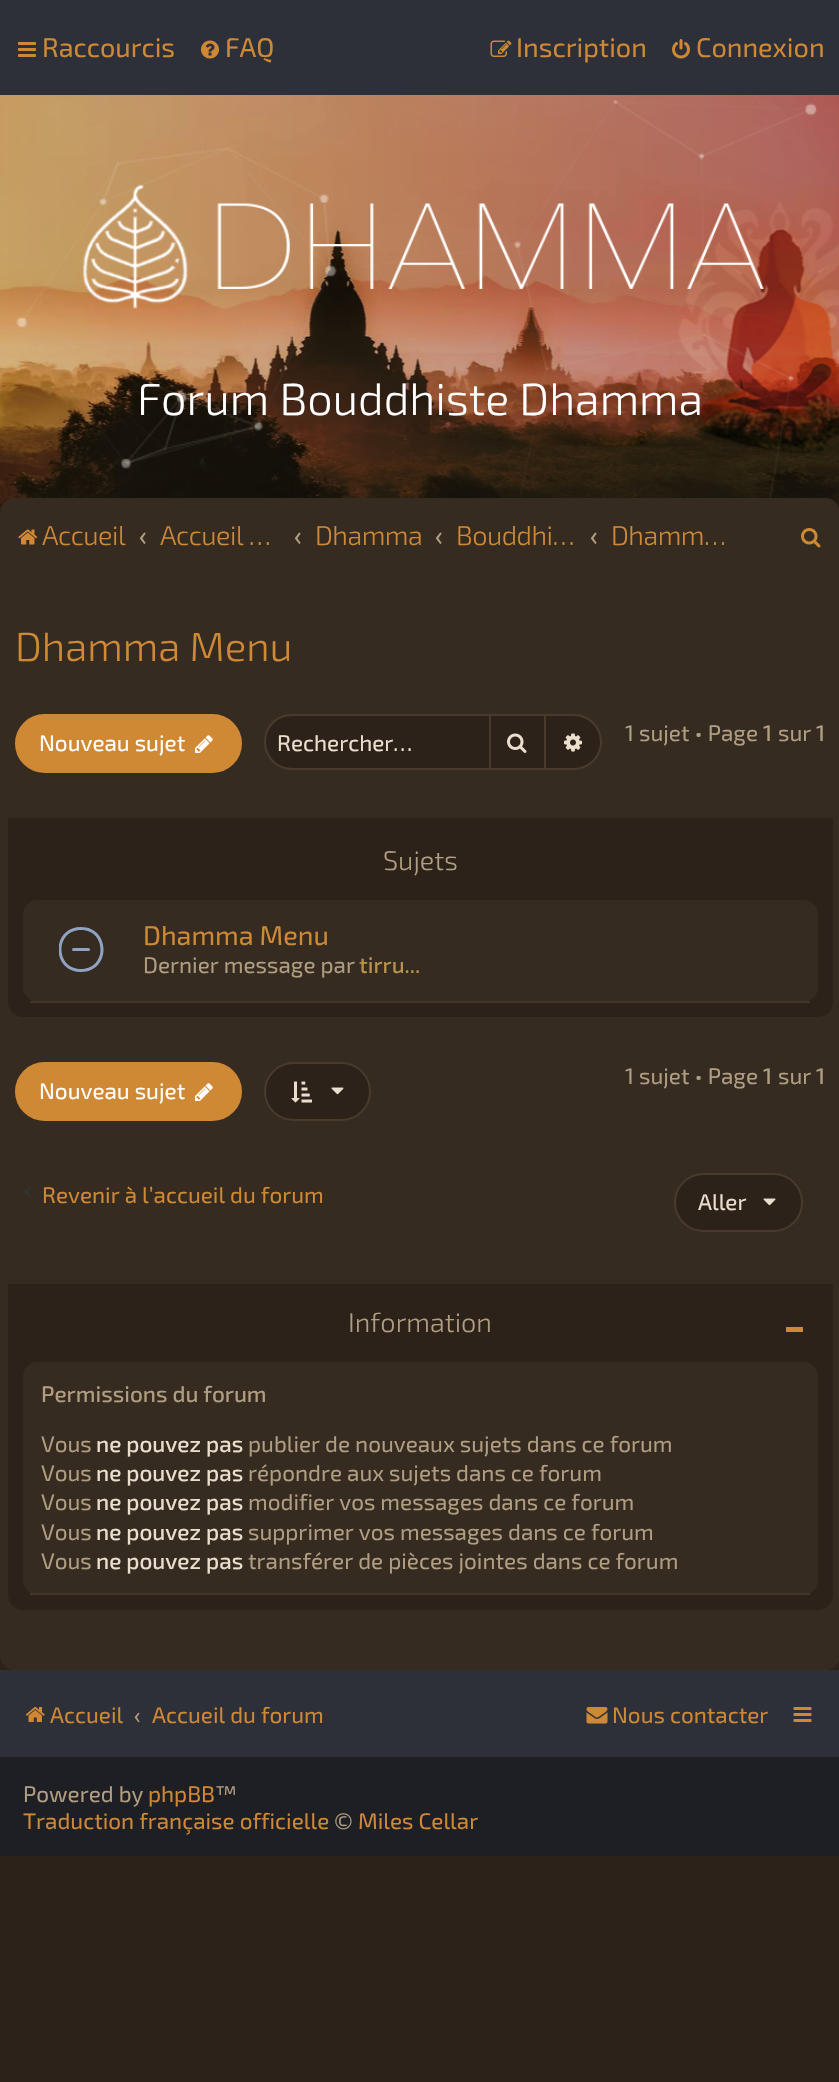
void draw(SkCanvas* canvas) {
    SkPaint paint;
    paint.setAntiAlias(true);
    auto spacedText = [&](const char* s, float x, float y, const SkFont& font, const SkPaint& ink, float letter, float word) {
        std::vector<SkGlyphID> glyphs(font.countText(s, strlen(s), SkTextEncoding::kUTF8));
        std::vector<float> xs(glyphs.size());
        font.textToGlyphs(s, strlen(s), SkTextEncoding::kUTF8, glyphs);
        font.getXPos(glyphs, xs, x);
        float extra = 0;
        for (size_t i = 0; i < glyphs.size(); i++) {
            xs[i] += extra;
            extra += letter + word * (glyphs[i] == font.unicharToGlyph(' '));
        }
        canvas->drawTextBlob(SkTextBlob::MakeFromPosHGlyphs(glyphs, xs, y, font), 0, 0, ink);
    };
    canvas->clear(0xFF2C2219);
    paint.setColor(0xFF2D3039);
    canvas->drawRect(SkRect::MakeXYWH(0, 0, 839, 95), paint);
    canvas->drawImageRect(SkImages::DeferredFromEncodedData(SkData::MakeFromFileName("img1.png")), SkRect::MakeXYWH(18, 42, 18, 15), SkSamplingOptions());
    SkFont font1(fontMgr->matchFamilyStyle("Exo 2", SkFontStyle::Normal()), 27);
    font1.setSubpixel(true);
    paint.setColor(0xFFCF8834);
    canvas->drawString("Raccourcis", 42, 57, font1, paint);
    canvas->drawImageRect(SkImages::DeferredFromEncodedData(SkData::MakeFromFileName("img2.png")), SkRect::MakeXYWH(201, 40, 18, 19), SkSamplingOptions());
    canvas->drawString("FAQ", 225, 57, font1, paint);
    canvas->drawImageRect(SkImages::DeferredFromEncodedData(SkData::MakeFromFileName("img3.png")), SkRect::MakeXYWH(490, 40, 22, 17), SkSamplingOptions());
    canvas->drawString("Inscription", 516, 57, font1, paint);
    canvas->drawImageRect(SkImages::DeferredFromEncodedData(SkData::MakeFromFileName("img4.png")), SkRect::MakeXYWH(672, 39, 18, 20), SkSamplingOptions());
    canvas->drawString("Connexion", 696, 57, font1, paint);
    canvas->drawImageRect(SkImages::DeferredFromEncodedData(SkData::MakeFromFileName("img18.png")), SkRect::MakeXYWH(0, 95, 839, 418), SkSamplingOptions());
    canvas->drawImageRect(SkImages::DeferredFromEncodedData(SkData::MakeFromFileName("img5.png")), SkRect::MakeXYWH(16, 100, 801, 398), SkSamplingOptions());
    canvas->drawImageRect(SkImages::DeferredFromEncodedData(SkData::MakeFromFileName("img6.png")), SkRect::MakeXYWH(82, 184, 683, 125), SkSamplingOptions());
    SkFont font2(fontMgr->matchFamilyStyle("Exo 2", SkFontStyle(300, SkFontStyle::kNormal_Width, SkFontStyle::kUpright_Slant)), 45);
    font2.setSubpixel(true);
    paint.setColor(0xFFFFFFFF);
    canvas->drawString("Forum Bouddhiste Dhamma", 137, 415, font2, paint);
    paint.setColor(0xFF352B21);
    canvas->drawRoundRect(SkRect::MakeXYWH(0, 498, 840, 1172), 15, 15, paint);
    canvas->drawImageRect(SkImages::DeferredFromEncodedData(SkData::MakeFromFileName("img7.png")), SkRect::MakeXYWH(18, 529, 20, 16), SkSamplingOptions());
    SkFont font3(fontMgr->matchFamilyStyle("Exo 2", SkFontStyle(300, SkFontStyle::kNormal_Width, SkFontStyle::kUpright_Slant)), 27);
    font3.setSubpixel(true);
    paint.setColor(0xFFCF8834);
    spacedText("Accueil", 42, 545, font3, paint, -0.5f, 0);
    SkFont font4(fontMgr->matchFamilyStyle("Exo 2", SkFontStyle(500, SkFontStyle::kNormal_Width, SkFontStyle::kUpright_Slant)), 27);
    font4.setSubpixel(true);
    paint.setColor(0xFFB19E81);
    canvas->drawString("‹", 139, 545, font4, paint);
    paint.setColor(0xFFCF8834);
    spacedText("Accueil …", 160, 545, font3, paint, -0.5f, 0);
    paint.setColor(0xFFB19E81);
    canvas->drawString("‹", 294, 545, font4, paint);
    paint.setColor(0xFFCF8834);
    spacedText("Dhamma", 315, 545, font3, paint, -0.5f, 0);
    paint.setColor(0xFFB19E81);
    canvas->drawString("‹", 435, 545, font4, paint);
    paint.setColor(0xFFCF8834);
    spacedText("Bouddhi…", 456, 545, font3, paint, -0.5f, 0);
    paint.setColor(0xFFB19E81);
    canvas->drawString("‹", 590, 545, font4, paint);
    paint.setColor(0xFFCF8834);
    spacedText("Dhamm…", 611, 545, font3, paint, -0.5f, 0);
    canvas->drawImageRect(SkImages::DeferredFromEncodedData(SkData::MakeFromFileName("img8.png")), SkRect::MakeXYWH(801, 528, 20, 20), SkSamplingOptions());
    SkFont font5(fontMgr->matchFamilyStyle("Exo 2", SkFontStyle(300, SkFontStyle::kNormal_Width, SkFontStyle::kUpright_Slant)), 40.5f);
    font5.setSubpixel(true);
    canvas->drawString("Dhamma Menu", 15, 661, font5, paint);
    canvas->drawRoundRect(SkRect::MakeXYWH(16, 715, 225, 57), 28.5f, 28.5f, paint);
    paint.setStyle(SkPaint::kStroke_Style);
    paint.setStrokeWidth(2);
    canvas->drawRoundRect(SkRect::MakeXYWH(16, 715, 225, 57), 28.5f, 28.5f, paint);
    SkFont font6(fontMgr->matchFamilyStyle("Exo 2", SkFontStyle::Normal()), 22.5f);
    font6.setSubpixel(true);
    paint.setStyle(SkPaint::kFill_Style);
    paint.setColor(0xFFFFFFFF);
    canvas->drawString("Nouveau sujet", 39, 751, font6, paint);
    canvas->drawImageRect(SkImages::DeferredFromEncodedData(SkData::MakeFromFileName("img9.png")), SkRect::MakeXYWH(195, 735, 18, 18), SkSamplingOptions());
    paint.setColor(0xFF2C2219);
    canvas->drawPath(SkPathBuilder().moveTo(292, 716).lineTo(489, 716).lineTo(489, 768).lineTo(292, 768).cubicTo(277.5f, 768, 266, 756.5f, 266, 742).cubicTo(266, 727.5f, 277.5f, 716, 292, 716).close().detach(), paint);
    paint.setColor(0xFF483B2C);
    canvas->drawPath(SkPathBuilder(SkPathFillType::kEvenOdd).moveTo(292, 714).lineTo(489, 714).lineTo(489, 770).lineTo(292, 770).cubicTo(276, 770, 264, 757, 264, 742).cubicTo(264, 726, 276, 714, 292, 714).close().moveTo(292, 716).lineTo(489, 716).lineTo(489, 768).lineTo(292, 768).cubicTo(277, 768, 266, 756, 266, 742).cubicTo(266, 727, 277, 716, 292, 716).close().detach(), paint);
    paint.setColor(0xFFEADECC);
    canvas->drawString("Rechercher…", 277, 751, font6, paint);
    paint.setColor(0xFF2C2219);
    canvas->drawRect(SkRect::MakeXYWH(490, 715, 55, 54), paint);
    paint.setStyle(SkPaint::kStroke_Style);
    paint.setColor(0xFF483B2C);
    canvas->drawRect(SkRect::MakeXYWH(490, 715, 55, 54), paint);
    canvas->drawImageRect(SkImages::DeferredFromEncodedData(SkData::MakeFromFileName("img10.png")), SkRect::MakeXYWH(507, 733, 20, 20), SkSamplingOptions());
    paint.setStyle(SkPaint::kFill_Style);
    paint.setColor(0xFF2C2219);
    canvas->drawPath(SkPathBuilder().moveTo(546, 716).lineTo(574, 716).cubicTo(588.5f, 716, 600, 727.5f, 600, 742).cubicTo(600, 756.5f, 588.5f, 768, 574, 768).lineTo(546, 768).close().detach(), paint);
    paint.setColor(0xFF483B2C);
    canvas->drawPath(SkPathBuilder(SkPathFillType::kEvenOdd).moveTo(546, 714).lineTo(574, 714).cubicTo(589, 714, 602, 726, 602, 742).cubicTo(602, 757, 589, 770, 574, 770).lineTo(546, 770).close().moveTo(546, 716).lineTo(574, 716).cubicTo(588, 716, 600, 727, 600, 742).cubicTo(600, 756, 588, 768, 574, 768).lineTo(546, 768).close().detach(), paint);
    canvas->drawImageRect(SkImages::DeferredFromEncodedData(SkData::MakeFromFileName("img11.png")), SkRect::MakeXYWH(564, 733, 18, 19), SkSamplingOptions());
    paint.setColor(0xFFB19E81);
    canvas->drawString("1 sujet • Page", 625, 741, font6, paint);
    SkFont font7(fontMgr->matchFamilyStyle("Exo 2", SkFontStyle(500, SkFontStyle::kNormal_Width, SkFontStyle::kUpright_Slant)), 22.5f);
    font7.setSubpixel(true);
    canvas->drawString("1", 763, 741, font7, paint);
    canvas->drawString("sur", 778, 741, font6, paint);
    canvas->drawString("1", 816, 741, font7, paint);
    paint.setColor(0xFF2C2219);
    canvas->drawPath(SkPathBuilder().moveTo(8, 818).lineTo(833, 818).lineTo(833, 1002).cubicTo(833, 1010.5f, 826.5f, 1017, 818, 1017).lineTo(23, 1017).cubicTo(14.5f, 1017, 8, 1010.5f, 8, 1002).close().detach(), paint);
    paint.setColor(0xFFB19E81);
    canvas->drawString("Sujets", 383, 870, font3, paint);
    paint.setColor(0xFF352B21);
    canvas->drawRoundRect(SkRect::MakeXYWH(23, 900, 795, 102), 15, 15, paint);
    paint.setColor(0xFF433528);
    canvas->drawRect(SkRect::MakeXYWH(30, 1001, 780, 2), paint);
    canvas->save();
    canvas->clipRect(SkRect::MakeXYWH(59, 927, 45, 45));
    paint.setColor(0xFF90A3C0);
    canvas->drawPath(SkPathBuilder().moveTo(81, 930).cubicTo(107, 930, 107, 969, 81, 969).cubicTo(55, 969, 55, 930, 81, 930).moveTo(81, 927).cubicTo(51, 927, 51, 972, 81, 972).cubicTo(111, 972, 111, 927, 81, 927).close().detach(), paint);
    canvas->restore();
    paint.setStyle(SkPaint::kStroke_Style);
    paint.setStrokeWidth(3);
    paint.setStrokeCap(SkPaint::kRound_Cap);
    canvas->drawPath(SkPathBuilder().moveTo(73.5f, 949.5f).lineTo(88.5f, 949.5f).detach(), paint);
    paint.setStyle(SkPaint::kFill_Style);
    paint.setColor(0xFFCF8834);
    canvas->drawString("Dhamma Menu", 143, 945, font1, paint);
    paint.setColor(0xFFB19E81);
    canvas->drawString("Dernier message par", 143, 973, font6, paint);
    paint.setColor(0xFFB99349);
    canvas->drawString("tirru...", 359, 973, font7, paint);
    paint.setColor(0xFF2C2219);
    canvas->drawRoundRect(SkRect::MakeXYWH(265, 1063, 105, 57), 28.5f, 28.5f, paint);
    paint.setStyle(SkPaint::kStroke_Style);
    paint.setStrokeWidth(2);
    paint.setStrokeCap(SkPaint::kButt_Cap);
    paint.setColor(0xFF483B2C);
    canvas->drawRoundRect(SkRect::MakeXYWH(265, 1063, 105, 57), 28.5f, 28.5f, paint);
    canvas->drawImageRect(SkImages::DeferredFromEncodedData(SkData::MakeFromFileName("img12.png")), SkRect::MakeXYWH(291, 1081, 21, 22), SkSamplingOptions());
    canvas->drawImageRect(SkImages::DeferredFromEncodedData(SkData::MakeFromFileName("img13.png")), SkRect::MakeXYWH(331, 1087, 13, 8), SkSamplingOptions());
    paint.setStyle(SkPaint::kFill_Style);
    paint.setColor(0xFFB19E81);
    canvas->drawString("1 sujet • Page", 625, 1084, font6, paint);
    canvas->drawString("1", 763, 1084, font7, paint);
    canvas->drawString("sur", 778, 1084, font6, paint);
    canvas->drawString("1", 816, 1084, font7, paint);
    paint.setColor(0xFFCF8834);
    canvas->drawRoundRect(SkRect::MakeXYWH(16, 1063, 225, 57), 28.5f, 28.5f, paint);
    paint.setStyle(SkPaint::kStroke_Style);
    canvas->drawRoundRect(SkRect::MakeXYWH(16, 1063, 225, 57), 28.5f, 28.5f, paint);
    paint.setStyle(SkPaint::kFill_Style);
    paint.setColor(0xFFFFFFFF);
    canvas->drawString("Nouveau sujet", 39, 1099, font6, paint);
    canvas->drawImageRect(SkImages::DeferredFromEncodedData(SkData::MakeFromFileName("img9.png")), SkRect::MakeXYWH(195, 1083, 18, 18), SkSamplingOptions());
    canvas->drawImageRect(SkImages::DeferredFromEncodedData(SkData::MakeFromFileName("img14.png")), SkRect::MakeXYWH(24, 1186, 7, 12), SkSamplingOptions());
    paint.setColor(0xFFCF8834);
    canvas->drawString("Revenir à l’accueil du forum", 42, 1203, font6, paint);
    paint.setColor(0xFF2C2219);
    canvas->drawRoundRect(SkRect::MakeXYWH(675, 1174, 127, 57), 28.5f, 28.5f, paint);
    paint.setStyle(SkPaint::kStroke_Style);
    paint.setColor(0xFF483B2C);
    canvas->drawRoundRect(SkRect::MakeXYWH(675, 1174, 127, 57), 28.5f, 28.5f, paint);
    paint.setStyle(SkPaint::kFill_Style);
    paint.setColor(0xFFEADECC);
    canvas->drawString("Aller", 698, 1210, font6, paint);
    canvas->drawImageRect(SkImages::DeferredFromEncodedData(SkData::MakeFromFileName("img13.png")), SkRect::MakeXYWH(763, 1198, 13, 8), SkSamplingOptions());
    paint.setColor(0xFF2C2219);
    canvas->drawPath(SkPathBuilder().moveTo(8, 1284).lineTo(833, 1284).lineTo(833, 1595).cubicTo(833, 1603.5f, 826.5f, 1610, 818, 1610).lineTo(23, 1610).cubicTo(14.5f, 1610, 8, 1603.5f, 8, 1595).close().detach(), paint);
    paint.setColor(0xFFB19E81);
    canvas->drawString("Information", 348, 1332, font3, paint);
    paint.setColor(0xFFCF8834);
    canvas->drawRect(SkRect::MakeXYWH(786, 1327, 17, 5), paint);
    paint.setColor(0xFF352B21);
    canvas->drawRoundRect(SkRect::MakeXYWH(23, 1362, 795, 233), 15, 15, paint);
    paint.setColor(0xFF433528);
    canvas->drawRect(SkRect::MakeXYWH(30, 1593, 780, 2), paint);
    paint.setColor(0xFFB19E81);
    canvas->drawString("Permissions du forum", 41, 1402, font7, paint);
    canvas->drawString("Vous", 41, 1452, font6, paint);
    paint.setColor(0xFFEADECC);
    canvas->drawString("ne pouvez pas", 96, 1452, font7, paint);
    paint.setColor(0xFFB19E81);
    canvas->drawString("publier de nouveaux sujets dans ce forum", 248, 1452, font6, paint);
    canvas->drawString("Vous", 41, 1481, font6, paint);
    paint.setColor(0xFFEADECC);
    canvas->drawString("ne pouvez pas", 96, 1481, font7, paint);
    paint.setColor(0xFFB19E81);
    canvas->drawString("répondre aux sujets dans ce forum", 248, 1481, font6, paint);
    canvas->drawString("Vous", 41, 1510, font6, paint);
    paint.setColor(0xFFEADECC);
    canvas->drawString("ne pouvez pas", 96, 1510, font7, paint);
    paint.setColor(0xFFB19E81);
    canvas->drawString("modifier vos messages dans ce forum", 248, 1510, font6, paint);
    canvas->drawString("Vous", 41, 1540, font6, paint);
    paint.setColor(0xFFEADECC);
    canvas->drawString("ne pouvez pas", 96, 1540, font7, paint);
    paint.setColor(0xFFB19E81);
    canvas->drawString("supprimer vos messages dans ce forum", 248, 1540, font6, paint);
    canvas->drawString("Vous", 41, 1569, font6, paint);
    paint.setColor(0xFFEADECC);
    canvas->drawString("ne pouvez pas", 96, 1569, font7, paint);
    paint.setColor(0xFFB19E81);
    canvas->drawString("transférer de pièces jointes dans ce forum", 248, 1569, font6, paint);
    paint.setColor(0xFF2D3039);
    canvas->drawRect(SkRect::MakeXYWH(0, 1670, 839, 87), paint);
    canvas->drawImageRect(SkImages::DeferredFromEncodedData(SkData::MakeFromFileName("img15.png")), SkRect::MakeXYWH(25, 1707, 20, 15), SkSamplingOptions());
    paint.setColor(0xFFCF8834);
    canvas->drawString("Accueil", 50, 1723, font6, paint);
    paint.setColor(0xFFB19E81);
    canvas->drawString("‹", 134, 1723, font7, paint);
    paint.setColor(0xFFCF8834);
    canvas->drawString("Accueil du forum", 152, 1723, font6, paint);
    canvas->drawImageRect(SkImages::DeferredFromEncodedData(SkData::MakeFromFileName("img16.png")), SkRect::MakeXYWH(586, 1707, 22, 17), SkSamplingOptions());
    canvas->drawString("Nous contacter", 612, 1723, font6, paint);
    canvas->drawImageRect(SkImages::DeferredFromEncodedData(SkData::MakeFromFileName("img17.png")), SkRect::MakeXYWH(793, 1707, 19, 15), SkSamplingOptions());
    paint.setColor(0xFF1D1F25);
    canvas->drawRect(SkRect::MakeXYWH(0, 1757, 839, 99), paint);
    paint.setColor(0xFFB19E81);
    canvas->drawString("Powered by", 23, 1802, font6, paint);
    paint.setColor(0xFFCF8834);
    canvas->drawString("phpBB", 148, 1802, font6, paint);
    paint.setColor(0xFFB19E81);
    canvas->drawString("™", 215, 1802, font6, paint);
    paint.setColor(0xFFCF8834);
    canvas->drawString("Traduction française officielle", 23, 1829, font6, paint);
    paint.setColor(0xFFB19E81);
    canvas->drawString("©", 334, 1829, font6, paint);
    paint.setColor(0xFFCF8834);
    canvas->drawString("Miles Cellar", 358, 1829, font6, paint);
}
